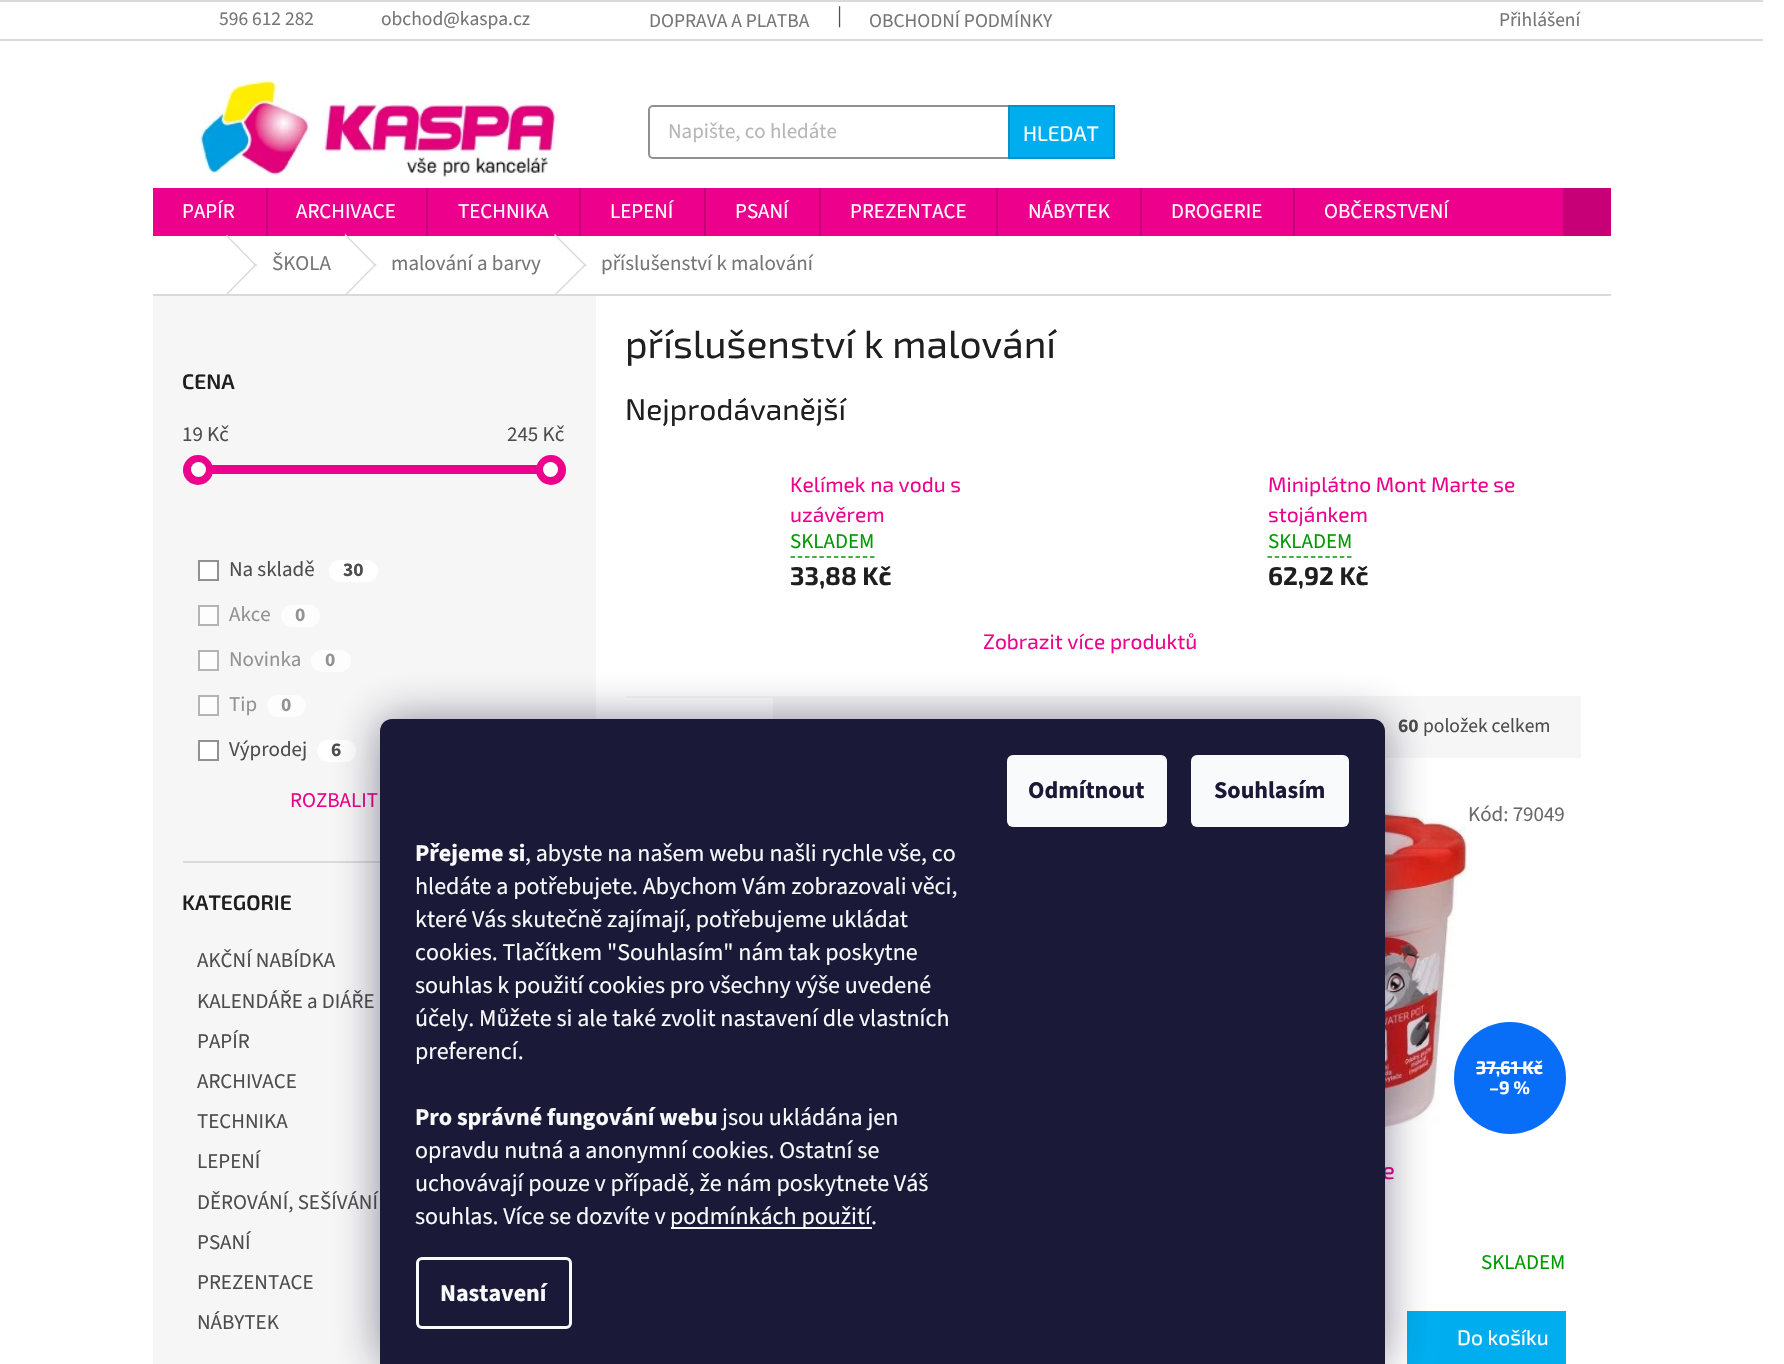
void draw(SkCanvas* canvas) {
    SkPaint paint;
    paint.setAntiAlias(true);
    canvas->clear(0xFFFFFFFF);
    paint.setColor(0xFFDADADA);
    canvas->drawRect(SkRect::MakeXYWH(0, 0, 1763, 2), paint);
    canvas->drawRect(SkRect::MakeXYWH(0, 39, 1763, 2), paint);
    SkFont font1(fontMgr->matchFamilyStyle("Source Sans 3", SkFontStyle::Normal()), 19.5f);
    font1.setSubpixel(true);
    paint.setColor(0xFF767676);
    canvas->drawString("596 612 282", 219, 25, font1, paint);
    canvas->drawString("obchod@kaspa.cz", 381, 25, font1, paint);
    canvas->drawString("DOPRAVA A PLATBA", 649, 27, font1, paint);
    SkFont font2(fontMgr->matchFamilyStyle("Source Sans 3", SkFontStyle::Normal()), 21);
    font2.setSubpixel(true);
    paint.setColor(0xFF4D4D4D);
    canvas->drawString("|", 837, 22, font2, paint);
    paint.setColor(0xFF767676);
    canvas->drawString("OBCHODNÍ PODMÍNKY", 869, 27, font1, paint);
    canvas->drawString("Přihlášení", 1499, 26, font1, paint);
    canvas->drawImageRect(SkImages::DeferredFromEncodedData(SkData::MakeFromFileName("img1.png")), SkRect::MakeXYWH(193, 80, 365, 97), SkSamplingOptions());
    paint.setStyle(SkPaint::kStroke_Style);
    paint.setStrokeWidth(2);
    paint.setColor(0xFF919191);
    canvas->drawRoundRect(SkRect::MakeXYWH(649, 106, 465, 52), 4, 4, paint);
    paint.setStyle(SkPaint::kFill_Style);
    paint.setColor(0xFFB6B6B6);
    canvas->drawString("Napište, co hledáte", 668, 138, font2, paint);
    paint.setColor(0xFF00AEEF);
    canvas->drawRect(SkRect::MakeXYWH(1009, 106, 105, 52), paint);
    paint.setStyle(SkPaint::kStroke_Style);
    paint.setColor(0xFF0092C8);
    canvas->drawRect(SkRect::MakeXYWH(1009, 106, 105, 52), paint);
    SkFont font3(fontMgr->matchFamilyStyle("Exo 2", SkFontStyle::Normal()), 21);
    font3.setSubpixel(true);
    paint.setStyle(SkPaint::kFill_Style);
    paint.setColor(0xFFFFFFFF);
    canvas->drawString("HLEDAT", 1023, 141, font3, paint);
    paint.setColor(0xFFEC008C);
    canvas->drawRect(SkRect::MakeXYWH(153, 188, 1410, 48), paint);
    paint.setColor(0xFFFFFFFF);
    canvas->drawString("PAPÍR", 182, 218, font2, paint);
    paint.setColor(0xFFC70077);
    canvas->drawRect(SkRect::MakeXYWH(266, 188, 2, 48), paint);
    paint.setColor(0xFFFFFFFF);
    canvas->drawString("ARCHIVACE", 296, 218, font2, paint);
    paint.setColor(0xFFC70077);
    canvas->drawRect(SkRect::MakeXYWH(426, 188, 2, 48), paint);
    paint.setColor(0xFFFFFFFF);
    canvas->drawString("TECHNIKA", 458, 218, font2, paint);
    paint.setColor(0xFFC70077);
    canvas->drawRect(SkRect::MakeXYWH(579, 188, 2, 48), paint);
    paint.setColor(0xFFFFFFFF);
    canvas->drawString("LEPENÍ", 610, 218, font2, paint);
    paint.setColor(0xFFC70077);
    canvas->drawRect(SkRect::MakeXYWH(704, 188, 2, 48), paint);
    paint.setColor(0xFFFFFFFF);
    canvas->drawString("PSANÍ", 735, 218, font2, paint);
    paint.setColor(0xFFC70077);
    canvas->drawRect(SkRect::MakeXYWH(819, 188, 2, 48), paint);
    paint.setColor(0xFFFFFFFF);
    canvas->drawString("PREZENTACE", 850, 218, font2, paint);
    paint.setColor(0xFFC70077);
    canvas->drawRect(SkRect::MakeXYWH(996, 188, 2, 48), paint);
    paint.setColor(0xFFFFFFFF);
    canvas->drawString("NÁBYTEK", 1028, 218, font2, paint);
    paint.setColor(0xFFC70077);
    canvas->drawRect(SkRect::MakeXYWH(1140, 188, 2, 48), paint);
    paint.setColor(0xFFFFFFFF);
    canvas->drawString("DROGERIE", 1171, 218, font2, paint);
    paint.setColor(0xFFC70077);
    canvas->drawRect(SkRect::MakeXYWH(1293, 188, 2, 48), paint);
    paint.setColor(0xFFFFFFFF);
    canvas->drawString("OBČERSTVENÍ", 1324, 218, font2, paint);
    paint.setColor(0xFFC70077);
    canvas->drawRect(SkRect::MakeXYWH(1563, 188, 48, 48), paint);
    paint.setColor(0xFFDADADA);
    canvas->drawRect(SkRect::MakeXYWH(153, 294, 1458, 2), paint);
    canvas->drawPath(SkPathBuilder().moveTo(226, 236).lineTo(227, 235).lineTo(257, 265.5f).lineTo(256, 266.5f).close().detach(), paint);
    canvas->drawPath(SkPathBuilder().moveTo(256, 263.5f).lineTo(257, 264.5f).lineTo(227, 295).lineTo(226, 294).close().detach(), paint);
    paint.setColor(0xFF767676);
    canvas->drawString("ŠKOLA", 272, 270, font2, paint);
    paint.setColor(0xFFDADADA);
    canvas->drawPath(SkPathBuilder().moveTo(344.5f, 235).lineTo(345.5f, 234).lineTo(376.5f, 265.5f).lineTo(375.5f, 266.5f).close().detach(), paint);
    canvas->drawPath(SkPathBuilder().moveTo(375.5f, 263.5f).lineTo(376.5f, 264.5f).lineTo(345.5f, 296).lineTo(344.5f, 295).close().detach(), paint);
    paint.setColor(0xFF767676);
    canvas->drawString("malování a barvy", 391, 270, font2, paint);
    paint.setColor(0xFFDADADA);
    canvas->drawPath(SkPathBuilder().moveTo(554, 235).lineTo(555, 234).lineTo(586.5f, 265.5f).lineTo(585.5f, 266.5f).close().detach(), paint);
    canvas->drawPath(SkPathBuilder().moveTo(585.5f, 263.5f).lineTo(586.5f, 264.5f).lineTo(555, 296).lineTo(554, 295).close().detach(), paint);
    paint.setColor(0xFF767676);
    canvas->drawString("příslušenství k malování", 601, 270, font2, paint);
    paint.setColor(0xFFF6F6F6);
    canvas->drawRect(SkRect::MakeXYWH(153, 296, 443, 1068), paint);
    paint.setColor(0xFFDADADA);
    canvas->drawRect(SkRect::MakeXYWH(183, 861, 197, 2), paint);
    SkFont font4(fontMgr->matchFamilyStyle("Exo 2", SkFontStyle(600, SkFontStyle::kNormal_Width, SkFontStyle::kUpright_Slant)), 21);
    font4.setSubpixel(true);
    paint.setColor(0xFF1F1F1F);
    canvas->drawString("CENA", 182, 389, font4, paint);
    paint.setColor(0xFF4D4D4D);
    canvas->drawString("19 Kč", 182, 441, font2, paint);
    canvas->drawString("245 Kč", 507, 441, font2, paint);
    paint.setColor(0xFFDADADA);
    canvas->drawRect(SkRect::MakeXYWH(183, 465, 383, 9), paint);
    paint.setColor(0xFFEC008C);
    canvas->drawRect(SkRect::MakeXYWH(212, 465, 325, 9), paint);
    canvas->drawCircle(198, 470, 15, paint);
    paint.setColor(0xFFFFFFFF);
    canvas->drawCircle(198.5f, 469.5f, 7.5f, paint);
    paint.setColor(0xFFEC008C);
    canvas->drawCircle(551, 470, 15, paint);
    paint.setColor(0xFFFFFFFF);
    canvas->drawCircle(550.5f, 469.5f, 7.5f, paint);
    canvas->drawRect(SkRect::MakeXYWH(199, 561, 19, 19), paint);
    paint.setStyle(SkPaint::kStroke_Style);
    paint.setColor(0xFF919191);
    canvas->drawRect(SkRect::MakeXYWH(199, 561, 19, 19), paint);
    paint.setStyle(SkPaint::kFill_Style);
    paint.setColor(0xFF4D4D4D);
    canvas->drawString("Na skladě", 229, 576, font2, paint);
    paint.setColor(0xFFFFFFFF);
    canvas->drawRoundRect(SkRect::MakeXYWH(329, 560, 49, 22), 11, 11, paint);
    SkFont font5(fontMgr->matchFamilyStyle("Source Sans 3", SkFontStyle::Bold()), 19.5f);
    font5.setSubpixel(true);
    paint.setColor(0xFF4D4D4D);
    canvas->drawString("30", 343, 576, font5, paint);
    paint.setColor(0xFFFDFDFD);
    canvas->drawRect(SkRect::MakeXYWH(199, 606, 19, 19), paint);
    paint.setStyle(SkPaint::kStroke_Style);
    paint.setColor(0xFFB4B4B4);
    canvas->drawRect(SkRect::MakeXYWH(199, 606, 19, 19), paint);
    paint.setStyle(SkPaint::kFill_Style);
    paint.setColor(0xFF929292);
    canvas->drawString("Akce", 229, 621, font2, paint);
    paint.setColor(0xFFFDFDFD);
    canvas->drawRoundRect(SkRect::MakeXYWH(281, 605, 39, 22), 11, 11, paint);
    paint.setColor(0xFF929292);
    canvas->drawString("0", 295, 621, font5, paint);
    paint.setColor(0xFFFDFDFD);
    canvas->drawRect(SkRect::MakeXYWH(199, 651, 19, 19), paint);
    paint.setStyle(SkPaint::kStroke_Style);
    paint.setColor(0xFFB4B4B4);
    canvas->drawRect(SkRect::MakeXYWH(199, 651, 19, 19), paint);
    paint.setStyle(SkPaint::kFill_Style);
    paint.setColor(0xFF929292);
    canvas->drawString("Novinka", 229, 666, font2, paint);
    paint.setColor(0xFFFDFDFD);
    canvas->drawRoundRect(SkRect::MakeXYWH(311, 650, 40, 22), 11, 11, paint);
    paint.setColor(0xFF929292);
    canvas->drawString("0", 325, 666, font5, paint);
    paint.setColor(0xFFFDFDFD);
    canvas->drawRect(SkRect::MakeXYWH(199, 696, 19, 19), paint);
    paint.setStyle(SkPaint::kStroke_Style);
    paint.setColor(0xFFB4B4B4);
    canvas->drawRect(SkRect::MakeXYWH(199, 696, 19, 19), paint);
    paint.setStyle(SkPaint::kFill_Style);
    paint.setColor(0xFF929292);
    canvas->drawString("Tip", 229, 711, font2, paint);
    paint.setColor(0xFFFDFDFD);
    canvas->drawRoundRect(SkRect::MakeXYWH(267, 695, 39, 22), 11, 11, paint);
    paint.setColor(0xFF929292);
    canvas->drawString("0", 281, 711, font5, paint);
    paint.setColor(0xFFFFFFFF);
    canvas->drawRect(SkRect::MakeXYWH(199, 741, 19, 19), paint);
    paint.setStyle(SkPaint::kStroke_Style);
    paint.setColor(0xFF919191);
    canvas->drawRect(SkRect::MakeXYWH(199, 741, 19, 19), paint);
    paint.setStyle(SkPaint::kFill_Style);
    paint.setColor(0xFF4D4D4D);
    canvas->drawString("Výprodej", 229, 756, font2, paint);
    paint.setColor(0xFFFFFFFF);
    canvas->drawRoundRect(SkRect::MakeXYWH(317, 740, 39, 22), 11, 11, paint);
    paint.setColor(0xFF4D4D4D);
    canvas->drawString("6", 331, 756, font5, paint);
    paint.setColor(0xFFEC008C);
    canvas->drawString("ROZBALIT", 290, 807, font2, paint);
    paint.setColor(0xFF1F1F1F);
    canvas->drawString("KATEGORIE", 182, 910, font4, paint);
    paint.setColor(0xFF4D4D4D);
    canvas->drawString("AKČNÍ NABÍDKA", 197, 967, font2, paint);
    canvas->drawString("KALENDÁŘE a DIÁŘE", 197, 1008, font2, paint);
    canvas->drawString("PAPÍR", 197, 1048, font2, paint);
    canvas->drawString("ARCHIVACE", 197, 1088, font2, paint);
    canvas->drawString("TECHNIKA", 197, 1128, font2, paint);
    canvas->drawString("LEPENÍ", 197, 1168, font2, paint);
    canvas->drawString("DĚROVÁNÍ, SEŠÍVÁNÍ", 197, 1209, font2, paint);
    canvas->drawString("PSANÍ", 197, 1249, font2, paint);
    canvas->drawString("PREZENTACE", 197, 1289, font2, paint);
    canvas->drawString("NÁBYTEK", 197, 1329, font2, paint);
    SkFont font6(fontMgr->matchFamilyStyle("Exo 2", SkFontStyle::Normal()), 39);
    font6.setSubpixel(true);
    paint.setColor(0xFF1F1F1F);
    canvas->drawString("příslušenství k malování", 625, 358, font6, paint);
    SkFont font7(fontMgr->matchFamilyStyle("Exo 2", SkFontStyle::Normal()), 30);
    font7.setSubpixel(true);
    canvas->drawString("Nejprodávanější", 625, 420, font7, paint);
    paint.setColor(0xFFEC008C);
    canvas->drawString("Kelímek na vodu s", 790, 492, font3, paint);
    canvas->drawString("uzávěrem", 790, 522, font3, paint);
    paint.setColor(0xFF009901);
    canvas->drawString("SKLADEM", 790, 548, font2, paint);
    paint.setStyle(SkPaint::kStroke_Style);
    paint.setStrokeWidth(1.5f);
    paint.setPathEffect(SkDashPathEffect::Make({{4.5f, 2.73f}}, 0));
    canvas->drawPath(SkPathBuilder().moveTo(790.5f, 557).lineTo(874.5f, 557).detach(), paint);
    paint.setPathEffect(nullptr);
    SkFont font8(fontMgr->matchFamilyStyle("Exo 2", SkFontStyle::Bold()), 25.5f);
    font8.setSubpixel(true);
    paint.setStyle(SkPaint::kFill_Style);
    paint.setColor(0xFF1F1F1F);
    canvas->drawString("33,88 Kč", 790, 585, font8, paint);
    paint.setColor(0xFFEC008C);
    canvas->drawString("Miniplátno Mont Marte se", 1268, 492, font3, paint);
    canvas->drawString("stojánkem", 1268, 522, font3, paint);
    paint.setColor(0xFF009901);
    canvas->drawString("SKLADEM", 1268, 548, font2, paint);
    paint.setStyle(SkPaint::kStroke_Style);
    paint.setPathEffect(SkDashPathEffect::Make({{4.5f, 2.73f}}, 0));
    canvas->drawPath(SkPathBuilder().moveTo(1267.5f, 557).lineTo(1351.5f, 557).detach(), paint);
    paint.setPathEffect(nullptr);
    paint.setStyle(SkPaint::kFill_Style);
    paint.setColor(0xFF1F1F1F);
    canvas->drawString("62,92 Kč", 1268, 585, font8, paint);
    paint.setColor(0xFFEC008C);
    canvas->drawString("Zobrazit více produktů", 983, 649, font3, paint);
    paint.setColor(0xFFF6F6F6);
    canvas->drawRect(SkRect::MakeXYWH(626, 696, 955, 62), paint);
    paint.setColor(0xFFFFFFFF);
    canvas->drawRect(SkRect::MakeXYWH(626, 698, 147, 21), paint);
    paint.setColor(0xFF4D4D4D);
    canvas->drawString("60", 1398, 732, font5, paint);
    canvas->drawString("položek celkem", 1423, 732, font1, paint);
    canvas->drawImageRect(SkImages::DeferredFromEncodedData(SkData::MakeFromFileName("img2.png")), SkRect::MakeXYWH(1385, 801, 87, 330), SkSamplingOptions());
    paint.setColor(0xFF696969);
    canvas->drawString("Kód: 79049", 1468, 821, font2, paint);
    paint.setColor(0xFF086DF7);
    canvas->drawCircle(1510, 1078, 56, paint);
    SkFont font9(fontMgr->matchFamilyStyle("Exo 2", SkFontStyle::Bold()), 18);
    font9.setSubpixel(true);
    paint.setColor(0xFFFFFFFF);
    canvas->drawString("37,61 Kč", 1476, 1074, font9, paint);
    canvas->drawRect(SkRect::MakeXYWH(1476, 1067, 66, 2), paint);
    canvas->drawString("–9 %", 1489, 1094, font9, paint);
    SkFont font10(fontMgr->matchFamilyStyle("Exo 2", SkFontStyle::Normal()), 24);
    font10.setSubpixel(true);
    paint.setColor(0xFFEC008C);
    canvas->drawString("e", 1382, 1179, font10, paint);
    paint.setColor(0xFF009901);
    canvas->drawString("SKLADEM", 1481, 1269, font2, paint);
    paint.setColor(0xFF00AEEF);
    canvas->drawRect(SkRect::MakeXYWH(1407, 1311, 159, 53), paint);
    paint.setColor(0xFFFFFFFF);
    canvas->drawString("Do košíku", 1457, 1345, font3, paint);
    paint.setColor(0x801B1939);
    paint.setMaskFilter(SkMaskFilter::MakeBlur(kNormal_SkBlurStyle, 22.5f));
    canvas->drawRoundRect(SkRect::MakeXYWH(380, 719, 1005, 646), 12, 12, paint);
    paint.setMaskFilter(nullptr);
    paint.setColor(0xFF1A1937);
    canvas->drawPath(SkPathBuilder().moveTo(392, 719).lineTo(1373, 719).cubicTo(1379.5f, 719, 1385, 724.5f, 1385, 731).lineTo(1385, 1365).lineTo(380, 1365).lineTo(380, 731).cubicTo(380, 724.5f, 385.5f, 719, 392, 719).close().detach(), paint);
    paint.setColor(0xFFF8FAFB);
    canvas->drawRoundRect(SkRect::MakeXYWH(1007, 755, 160, 72), 6, 6, paint);
    SkFont font11(fontMgr->matchFamilyStyle("Source Sans 3", SkFontStyle::Bold()), 24);
    font11.setSubpixel(true);
    paint.setColor(0xFF1A1937);
    canvas->drawString("Odmítnout", 1028, 798, font11, paint);
    paint.setColor(0xFFF8FAFB);
    canvas->drawRoundRect(SkRect::MakeXYWH(1191, 755, 158, 72), 6, 6, paint);
    paint.setColor(0xFF1A1937);
    canvas->drawString("Souhlasím", 1214, 798, font11, paint);
    paint.setColor(0xFFF8FAFB);
    canvas->drawString("Přejeme si", 415, 861, font11, paint);
    SkFont font12(fontMgr->matchFamilyStyle("Source Sans 3", SkFontStyle::Normal()), 24);
    font12.setSubpixel(true);
    canvas->drawString(", abyste na našem webu našli rychle vše, co", 525, 861, font12, paint);
    canvas->drawString("hledáte a potřebujete. Abychom Vám zobrazovali věci,", 415, 894, font12, paint);
    canvas->drawString("které Vás skutečně zajímají, potřebujeme ukládat", 415, 927, font12, paint);
    canvas->drawString("cookies. Tlačítkem \"Souhlasím\" nám tak poskytne", 415, 960, font12, paint);
    canvas->drawString("souhlas k použití cookies pro všechny výše uvedené", 415, 993, font12, paint);
    canvas->drawString("účely. Můžete si ale také zvolit nastavení dle vlastních", 415, 1026, font12, paint);
    canvas->drawString("preferencí.", 415, 1059, font12, paint);
    canvas->drawString("Pro správné fungování webu", 415, 1125, font11, paint);
    canvas->drawString("jsou ukládána jen", 722, 1125, font12, paint);
    canvas->drawString("opravdu nutná a anonymní cookies. Ostatní se", 415, 1158, font12, paint);
    canvas->drawString("uchovávají pouze v případě, že nám poskytnete Váš", 415, 1191, font12, paint);
    canvas->drawString("souhlas. Více se dozvíte v", 415, 1224, font12, paint);
    canvas->drawRect(SkRect::MakeXYWH(671, 1227, 201, 2), paint);
    canvas->drawString("podmínkách použití.", 670, 1224, font12, paint);
    paint.setStyle(SkPaint::kStroke_Style);
    paint.setStrokeWidth(3);
    canvas->drawRoundRect(SkRect::MakeXYWH(417.5f, 1258.5f, 153, 69), 4.5f, 4.5f, paint);
    paint.setStyle(SkPaint::kFill_Style);
    canvas->drawString("Nastavení", 440, 1301, font11, paint);
}
